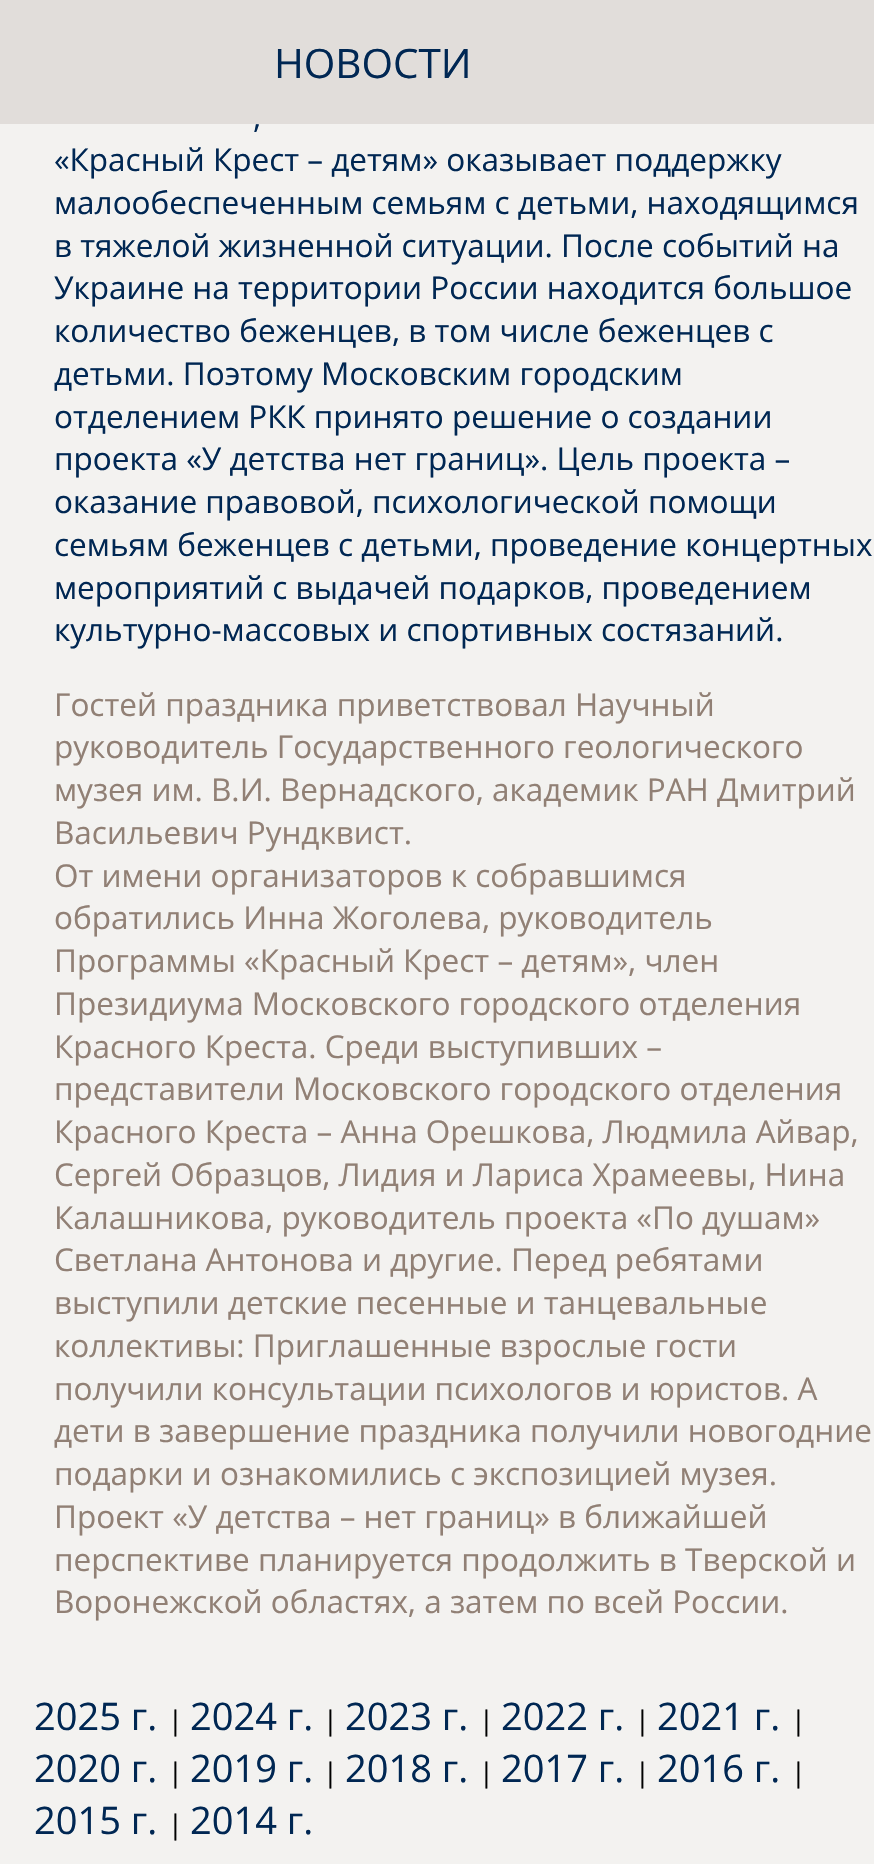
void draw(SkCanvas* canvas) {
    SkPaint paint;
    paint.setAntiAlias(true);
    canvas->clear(0xFFF3F2F0);
    paint.setColor(0xFFE1DDDA);
    canvas->drawRect(SkRect::MakeXYWH(0, 0, 874, 124), paint);
    SkFont font1(fontMgr->matchFamilyStyle("Open Sans", SkFontStyle::Normal()), 40.5f);
    font1.setSubpixel(true);
    paint.setColor(0xFF002753);
    canvas->drawString("НОВОСТИ", 274, 78, font1, paint);
    SkFont font2(fontMgr->matchFamilyStyle("Open Sans", SkFontStyle::Normal()), 31.5f);
    font2.setSubpixel(true);
    canvas->drawString(",", 253, 128, font2, paint);
    canvas->drawString("«Красный Крест – детям» оказывает поддержку", 54, 171, font2, paint);
    canvas->drawString("малообеспеченным семьям с детьми, находящимся", 54, 214, font2, paint);
    canvas->drawString("в тяжелой жизненной ситуации. После событий на", 54, 257, font2, paint);
    canvas->drawString("Украине на территории России находится большое", 54, 299, font2, paint);
    canvas->drawString("количество беженцев, в том числе беженцев с", 54, 342, font2, paint);
    canvas->drawString("детьми. Поэтому Московским городским", 54, 385, font2, paint);
    canvas->drawString("отделением РКК принято решение о создании", 54, 428, font2, paint);
    canvas->drawString("проекта «У детства нет границ». Цель проекта –", 54, 470, font2, paint);
    canvas->drawString("оказание правовой, психологической помощи", 54, 513, font2, paint);
    canvas->drawString("семьям беженцев с детьми, проведение концертных", 54, 556, font2, paint);
    canvas->drawString("мероприятий с выдачей подарков, проведением", 54, 599, font2, paint);
    canvas->drawString("культурно-массовых и спортивных состязаний.", 54, 641, font2, paint);
    paint.setColor(0xFF918075);
    canvas->drawString("Гостей праздника приветствовал Научный", 54, 716, font2, paint);
    canvas->drawString("руководитель Государственного геологического", 54, 758, font2, paint);
    canvas->drawString("музея им. В.И. Вернадского, академик РАН Дмитрий", 54, 801, font2, paint);
    canvas->drawString("Васильевич Рундквист.", 54, 844, font2, paint);
    canvas->drawString("От имени организаторов к собравшимся", 54, 887, font2, paint);
    canvas->drawString("обратились Инна Жоголева, руководитель", 54, 929, font2, paint);
    canvas->drawString("Программы «Красный Крест – детям», член", 54, 972, font2, paint);
    canvas->drawString("Президиума Московского городского отделения", 54, 1015, font2, paint);
    canvas->drawString("Красного Креста. Среди выступивших –", 54, 1058, font2, paint);
    canvas->drawString("представители Московского городского отделения", 54, 1100, font2, paint);
    canvas->drawString("Красного Креста – Анна Орешкова, Людмила Айвар,", 54, 1143, font2, paint);
    canvas->drawString("Сергей Образцов, Лидия и Лариса Храмеевы, Нина", 54, 1186, font2, paint);
    canvas->drawString("Калашникова, руководитель проекта «По душам»", 54, 1229, font2, paint);
    canvas->drawString("Светлана Антонова и другие. Перед ребятами", 54, 1271, font2, paint);
    canvas->drawString("выступили детские песенные и танцевальные", 54, 1314, font2, paint);
    canvas->drawString("коллективы: Приглашенные взрослые гости", 54, 1357, font2, paint);
    canvas->drawString("получили консультации психологов и юристов. А", 54, 1400, font2, paint);
    canvas->drawString("дети в завершение праздника получили новогодние", 54, 1442, font2, paint);
    canvas->drawString("подарки и ознакомились с экспозицией музея.", 54, 1485, font2, paint);
    canvas->drawString("Проект «У детства – нет границ» в ближайшей", 54, 1528, font2, paint);
    canvas->drawString("перспективе планируется продолжить в Тверской и", 54, 1571, font2, paint);
    canvas->drawString("Воронежской областях, а затем по всей России.", 54, 1613, font2, paint);
    SkFont font3(fontMgr->matchFamilyStyle("Open Sans", SkFontStyle::Normal()), 38);
    font3.setSubpixel(true);
    paint.setColor(0xFF002753);
    canvas->drawString("2025 г.", 34, 1730, font3, paint);
    SkFont font4(fontMgr->matchFamilyStyle("Open Sans", SkFontStyle::Normal()), 27);
    font4.setSubpixel(true);
    paint.setColor(0xFF000000);
    canvas->drawString("|", 168, 1730, font4, paint);
    paint.setColor(0xFF002753);
    canvas->drawString("2024 г.", 190, 1730, font3, paint);
    paint.setColor(0xFF000000);
    canvas->drawString("|", 323, 1730, font4, paint);
    paint.setColor(0xFF002753);
    canvas->drawString("2023 г.", 345, 1730, font3, paint);
    paint.setColor(0xFF000000);
    canvas->drawString("|", 479, 1730, font4, paint);
    paint.setColor(0xFF002753);
    canvas->drawString("2022 г.", 501, 1730, font3, paint);
    paint.setColor(0xFF000000);
    canvas->drawString("|", 635, 1730, font4, paint);
    paint.setColor(0xFF002753);
    canvas->drawString("2021 г.", 657, 1730, font3, paint);
    paint.setColor(0xFF000000);
    canvas->drawString("|", 791, 1730, font4, paint);
    paint.setColor(0xFF002753);
    canvas->drawString("2020 г.", 34, 1782, font3, paint);
    paint.setColor(0xFF000000);
    canvas->drawString("|", 168, 1782, font4, paint);
    paint.setColor(0xFF002753);
    canvas->drawString("2019 г.", 190, 1782, font3, paint);
    paint.setColor(0xFF000000);
    canvas->drawString("|", 323, 1782, font4, paint);
    paint.setColor(0xFF002753);
    canvas->drawString("2018 г.", 345, 1782, font3, paint);
    paint.setColor(0xFF000000);
    canvas->drawString("|", 479, 1782, font4, paint);
    paint.setColor(0xFF002753);
    canvas->drawString("2017 г.", 501, 1782, font3, paint);
    paint.setColor(0xFF000000);
    canvas->drawString("|", 635, 1782, font4, paint);
    paint.setColor(0xFF002753);
    canvas->drawString("2016 г.", 657, 1782, font3, paint);
    paint.setColor(0xFF000000);
    canvas->drawString("|", 791, 1782, font4, paint);
    paint.setColor(0xFF002753);
    canvas->drawString("2015 г.", 34, 1834, font3, paint);
    paint.setColor(0xFF000000);
    canvas->drawString("|", 168, 1834, font4, paint);
    paint.setColor(0xFF002753);
    canvas->drawString("2014 г.", 190, 1834, font3, paint);
}
